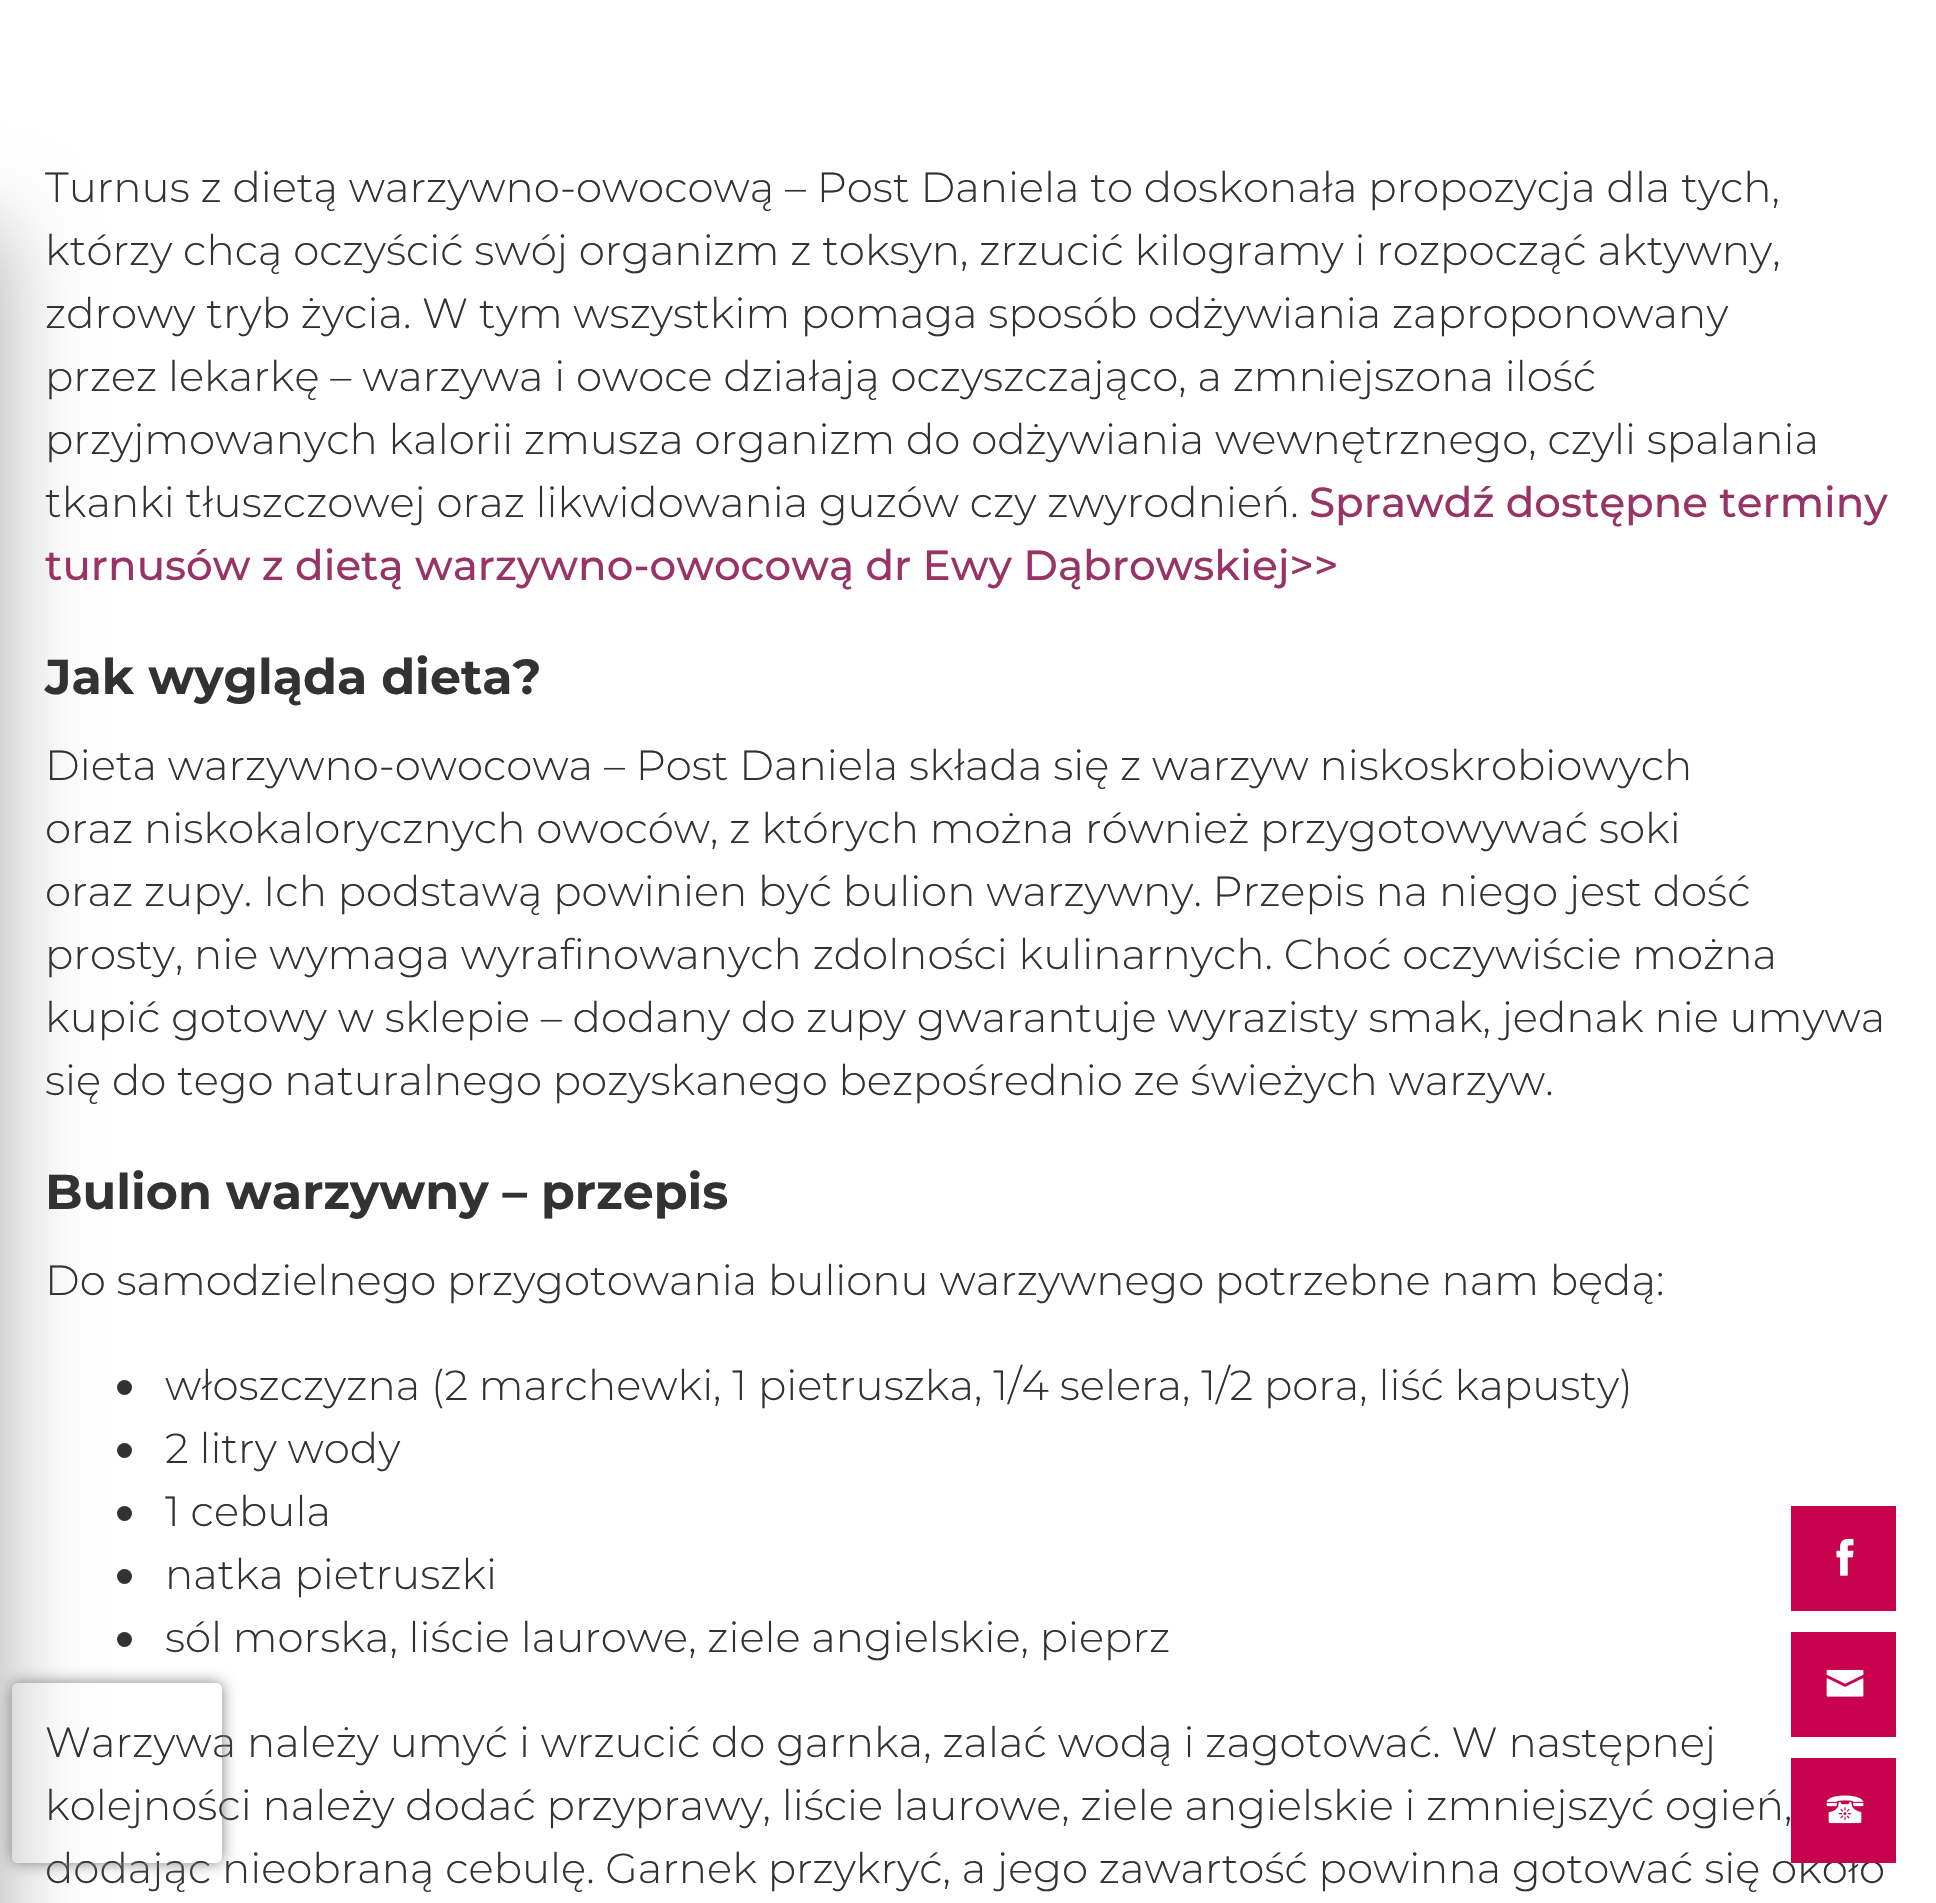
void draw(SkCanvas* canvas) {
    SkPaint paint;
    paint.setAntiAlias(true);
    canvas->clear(0xFFFFFFFF);
    paint.setColor(0xFF323232);
    canvas->drawCircle(124.5f, 1387.5f, 7.5f, paint);
    canvas->drawCircle(124.5f, 1450.5f, 7.5f, paint);
    canvas->drawCircle(124.5f, 1513.5f, 7.5f, paint);
    canvas->drawCircle(124.5f, 1576.5f, 7.5f, paint);
    canvas->drawCircle(124.5f, 1639.5f, 7.5f, paint);
    paint.setColor(0x54000000);
    paint.setMaskFilter(SkMaskFilter::MakeBlur(kNormal_SkBlurStyle, 45));
    canvas->drawRect(SkRect::MakeXYWH(-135, 228, 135, 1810), paint);
    paint.setMaskFilter(nullptr);
    SkFont font1(fontMgr->matchFamilyStyle("Montserrat", SkFontStyle(300, SkFontStyle::kNormal_Width, SkFontStyle::kUpright_Slant)), 42);
    font1.setSubpixel(true);
    paint.setColor(0xFF323232);
    canvas->drawString("Turnus z dietą warzywno-owocową – Post Daniela to doskonała propozycja dla tych,", 45, 202, font1, paint);
    canvas->drawString("którzy chcą oczyścić swój organizm z toksyn, zrzucić kilogramy i rozpocząć aktywny,", 45, 265, font1, paint);
    canvas->drawString("zdrowy tryb życia. W tym wszystkim pomaga sposób odżywiania zaproponowany", 45, 328, font1, paint);
    canvas->drawString("przez lekarkę – warzywa i owoce działają oczyszczająco, a zmniejszona ilość", 45, 391, font1, paint);
    canvas->drawString("przyjmowanych kalorii zmusza organizm do odżywiania wewnętrznego, czyli spalania", 45, 454, font1, paint);
    canvas->drawString("tkanki tłuszczowej oraz likwidowania guzów czy zwyrodnień.", 45, 517, font1, paint);
    SkFont font2(fontMgr->matchFamilyStyle("Montserrat", SkFontStyle(500, SkFontStyle::kNormal_Width, SkFontStyle::kUpright_Slant)), 42);
    font2.setSubpixel(true);
    paint.setColor(0xFF993366);
    canvas->drawString("Sprawdź dostępne terminy", 1309, 517, font2, paint);
    canvas->drawString("turnusów z dietą warzywno-owocową dr Ewy Dąbrowskiej>>", 45, 580, font2, paint);
    SkFont font3(fontMgr->matchFamilyStyle("Montserrat", SkFontStyle::Bold()), 49.1f);
    font3.setSubpixel(true);
    paint.setColor(0xFF323232);
    canvas->drawString("Jak wygląda dieta?", 45, 694, font3, paint);
    canvas->drawString("Dieta warzywno-owocowa – Post Daniela składa się z warzyw niskoskrobiowych", 45, 780, font1, paint);
    canvas->drawString("oraz niskokalorycznych owoców, z których można również przygotowywać soki", 45, 843, font1, paint);
    canvas->drawString("oraz zupy. Ich podstawą powinien być bulion warzywny. Przepis na niego jest dość", 45, 906, font1, paint);
    canvas->drawString("prosty, nie wymaga wyrafinowanych zdolności kulinarnych. Choć oczywiście można", 45, 969, font1, paint);
    canvas->drawString("kupić gotowy w sklepie – dodany do zupy gwarantuje wyrazisty smak, jednak nie umywa", 45, 1032, font1, paint);
    canvas->drawString("się do tego naturalnego pozyskanego bezpośrednio ze świeżych warzyw.", 45, 1095, font1, paint);
    canvas->drawString("Bulion warzywny – przepis", 45, 1209, font3, paint);
    canvas->drawString("Do samodzielnego przygotowania bulionu warzywnego potrzebne nam będą:", 45, 1295, font1, paint);
    canvas->drawString("włoszczyzna (2 marchewki, 1 pietruszka, 1/4 selera, 1/2 pora, liść kapusty)", 165, 1400, font1, paint);
    canvas->drawString("2 litry wody", 165, 1463, font1, paint);
    canvas->drawString("1 cebula", 165, 1526, font1, paint);
    canvas->drawString("natka pietruszki", 165, 1589, font1, paint);
    canvas->drawString("sól morska, liście laurowe, ziele angielskie, pieprz", 165, 1652, font1, paint);
    canvas->drawString("Warzywa należy umyć i wrzucić do garnka, zalać wodą i zagotować. W następnej", 45, 1757, font1, paint);
    canvas->drawString("kolejności należy dodać przyprawy, liście laurowe, ziele angielskie i zmniejszyć ogień,", 45, 1820, font1, paint);
    canvas->drawString("dodając nieobraną cebulę. Garnek przykryć, a jego zawartość powinna gotować się około", 45, 1883, font1, paint);
    paint.setColor(0xFFC9024D);
    canvas->drawRect(SkRect::MakeXYWH(1791, 1506, 105, 105), paint);
    canvas->drawImageRect(SkImages::DeferredFromEncodedData(SkData::MakeFromFileName("img1.png")), SkRect::MakeXYWH(1836, 1538, 18, 38), SkSamplingOptions());
    canvas->drawRect(SkRect::MakeXYWH(1791, 1632, 105, 105), paint);
    canvas->drawImageRect(SkImages::DeferredFromEncodedData(SkData::MakeFromFileName("img2.png")), SkRect::MakeXYWH(1826, 1669, 38, 28), SkSamplingOptions());
    canvas->drawRect(SkRect::MakeXYWH(1791, 1758, 105, 105), paint);
    canvas->drawImageRect(SkImages::DeferredFromEncodedData(SkData::MakeFromFileName("img3.png")), SkRect::MakeXYWH(1826, 1795, 38, 29), SkSamplingOptions());
    canvas->save();
    canvas->clipPath(SkPathBuilder(SkPathFillType::kEvenOdd).moveTo(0, 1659).lineTo(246, 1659).lineTo(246, 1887).lineTo(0, 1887).close().moveTo(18, 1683).lineTo(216, 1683).cubicTo(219.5f, 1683, 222, 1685.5f, 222, 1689).lineTo(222, 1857).cubicTo(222, 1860.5f, 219.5f, 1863, 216, 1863).lineTo(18, 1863).cubicTo(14.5f, 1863, 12, 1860.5f, 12, 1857).lineTo(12, 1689).cubicTo(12, 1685.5f, 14.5f, 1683, 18, 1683).close().detach(), true);
    paint.setColor(0xFF808080);
    paint.setMaskFilter(SkMaskFilter::MakeBlur(kNormal_SkBlurStyle, 7.5f));
    canvas->drawRoundRect(SkRect::MakeXYWH(12, 1683, 210, 180), 6, 6, paint);
    paint.setMaskFilter(nullptr);
    canvas->restore();
}
